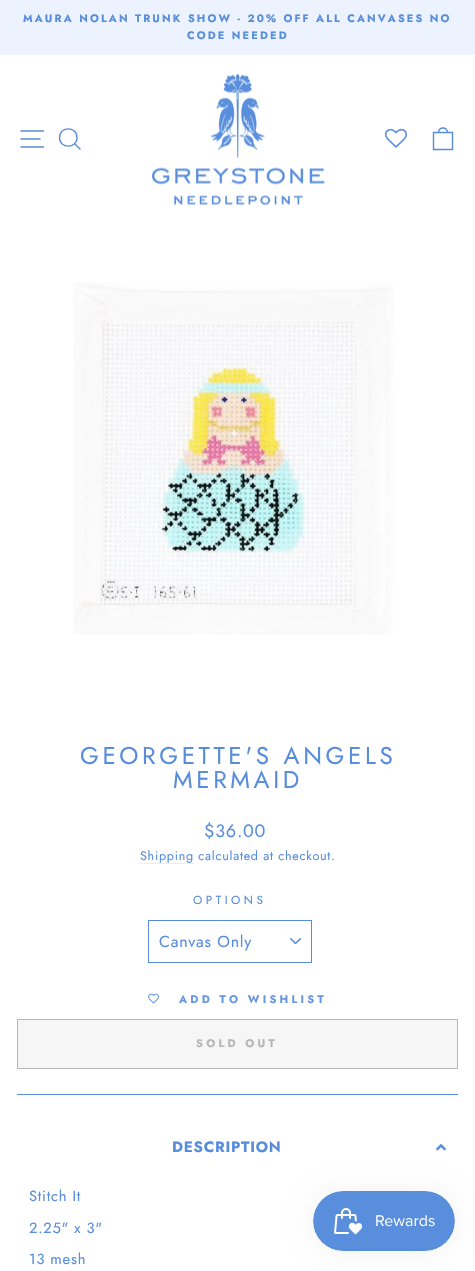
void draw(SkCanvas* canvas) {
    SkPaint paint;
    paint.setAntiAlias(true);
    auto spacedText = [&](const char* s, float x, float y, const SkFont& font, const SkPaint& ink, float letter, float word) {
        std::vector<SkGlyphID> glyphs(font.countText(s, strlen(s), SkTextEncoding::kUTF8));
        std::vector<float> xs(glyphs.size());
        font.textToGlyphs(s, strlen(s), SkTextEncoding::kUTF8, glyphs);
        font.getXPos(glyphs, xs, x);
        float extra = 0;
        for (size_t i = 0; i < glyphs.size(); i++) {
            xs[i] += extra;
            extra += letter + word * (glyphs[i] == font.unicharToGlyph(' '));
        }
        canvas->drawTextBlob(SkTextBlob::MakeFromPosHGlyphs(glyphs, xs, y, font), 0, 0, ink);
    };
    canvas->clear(0xFFFFFFFF);
    paint.setColor(0xFFECF3FF);
    canvas->drawRect(SkRect::MakeXYWH(0, 0, 475, 55), paint);
    SkFont font1(fontMgr->matchFamilyStyle("Jost", SkFontStyle::Bold()), 10.8f);
    font1.setSubpixel(true);
    paint.setColor(0xFF588DDB);
    spacedText("MAURA NOLAN TRUNK SHOW - 20% OFF ALL CANVASES NO", 23, 22, font1, paint, 2.15f, 0);
    spacedText("CODE NEEDED", 187, 39, font1, paint, 2.15f, 0);
    paint.setStyle(SkPaint::kStroke_Style);
    paint.setStrokeWidth(1.4f);
    canvas->drawPath(SkPathBuilder().moveTo(20.5f, 131).lineTo(44, 131).moveTo(20.5f, 139).lineTo(40.5f, 139).moveTo(20.5f, 147).lineTo(44, 147).moveTo(77, 137.5f).cubicTo(77, 149, 59.5f, 149, 59.5f, 137.5f).cubicTo(59.5f, 126, 77, 126, 77, 137.5f).close().moveTo(80.5f, 149.5f).lineTo(74.5f, 143.5f).detach(), paint);
    canvas->drawImageRect(SkImages::DeferredFromEncodedData(SkData::MakeFromFileName("img1.png")), SkRect::MakeXYWH(151, 73, 174, 133), SkSamplingOptions());
    canvas->drawImageRect(SkImages::DeferredFromEncodedData(SkData::MakeFromFileName("img2.png")), SkRect::MakeXYWH(385, 128, 22, 20), SkSamplingOptions());
    canvas->drawPath(SkPathBuilder().moveTo(433.5f, 132.5f).lineTo(452.5f, 132.5f).lineTo(452.5f, 149.5f).lineTo(433.5f, 149.5f).close().moveTo(438.5f, 132.5f).cubicTo(438.5f, 126.5f, 447.5f, 126.5f, 447.5f, 132.5f).detach(), paint);
    canvas->drawImageRect(SkImages::DeferredFromEncodedData(SkData::MakeFromFileName("img3.png")), SkRect::MakeXYWH(73, 282, 321, 353), SkSamplingOptions());
    SkFont font2(fontMgr->matchFamilyStyle("Jost", SkFontStyle::Normal()), 24.25f);
    font2.setSubpixel(true);
    paint.setStyle(SkPaint::kFill_Style);
    spacedText("GEORGETTE'S ANGELS", 80, 764, font2, paint, 3.6f, 0);
    spacedText("MERMAID", 173, 788, font2, paint, 3.6f, 0);
    SkFont font3(fontMgr->matchFamilyStyle("Jost", SkFontStyle::Normal()), 18);
    font3.setSubpixel(true);
    spacedText("$36.00", 204, 837, font3, paint, 0.75f, 0);
    SkFont font4(fontMgr->matchFamilyStyle("Jost", SkFontStyle::Normal()), 12.5f);
    font4.setSubpixel(true);
    spacedText("Shipping calculated at checkout.", 140, 860, font4, paint, 0.75f, 0);
    paint.setColor(0xFFE6EEFA);
    canvas->drawRect(SkRect::MakeXYWH(140, 863, 54, 1), paint);
    SkFont font5(fontMgr->matchFamilyStyle("Jost", SkFontStyle::Normal()), 11.75f);
    font5.setSubpixel(true);
    paint.setColor(0xFF588DDB);
    spacedText("OPTIONS", 193, 904, font5, paint, 3.5f, 0);
    canvas->drawImageRect(SkImages::DeferredFromEncodedData(SkData::MakeFromFileName("img4.png")), SkRect::MakeXYWH(290, 938, 11, 6), SkSamplingOptions());
    paint.setStyle(SkPaint::kStroke_Style);
    paint.setStrokeWidth(1);
    canvas->drawRect(SkRect::MakeXYWH(148.5f, 920.5f, 163, 42), paint);
    SkFont font6(fontMgr->matchFamilyStyle("Jost", SkFontStyle::Normal()), 16);
    font6.setSubpixel(true);
    paint.setStyle(SkPaint::kFill_Style);
    spacedText("Canvas Only", 159, 947, font6, paint, 0.75f, 0);
    canvas->drawImageRect(SkImages::DeferredFromEncodedData(SkData::MakeFromFileName("img5.png")), SkRect::MakeXYWH(148, 993, 11, 11), SkSamplingOptions());
    SkFont font7(fontMgr->matchFamilyStyle("Jost", SkFontStyle::Bold()), 11);
    font7.setSubpixel(true);
    paint.setColor(0xFF6998DF);
    spacedText("ADD TO WISHLIST", 179, 1003, font7, paint, 3.25f, 0);
    paint.setColor(0xFFF6F6F6);
    canvas->drawRect(SkRect::MakeXYWH(17.5f, 1019.5f, 440, 49), paint);
    paint.setStyle(SkPaint::kStroke_Style);
    paint.setColor(0xFFB6B6B6);
    canvas->drawRect(SkRect::MakeXYWH(17.5f, 1019.5f, 440, 49), paint);
    paint.setStyle(SkPaint::kFill_Style);
    spacedText("SOLD OUT", 196, 1047, font7, paint, 3.25f, 0);
    paint.setColor(0xFF588DDB);
    canvas->drawRect(SkRect::MakeXYWH(17, 1094, 441, 1), paint);
    SkFont font8(fontMgr->matchFamilyStyle("Jost", SkFontStyle::Bold()), 15);
    font8.setSubpixel(true);
    spacedText("DESCRIPTION", 172, 1152, font8, paint, 0.75f, 0);
    canvas->drawImageRect(SkImages::DeferredFromEncodedData(SkData::MakeFromFileName("img6.png")), SkRect::MakeXYWH(436, 1144, 10, 7), SkSamplingOptions());
    SkFont font9(fontMgr->matchFamilyStyle("Jost", SkFontStyle::Normal()), 14.75f);
    font9.setSubpixel(true);
    spacedText("Stitch It", 29, 1201, font9, paint, 0.75f, 0);
    spacedText("2.25\" x 3\"", 29, 1233, font9, paint, 0.75f, 0);
    spacedText("13 mesh", 29, 1264, font9, paint, 0.75f, 0);
    paint.setColor(0x0D000000);
    paint.setMaskFilter(SkMaskFilter::MakeBlur(kNormal_SkBlurStyle, 12.5f));
    canvas->drawRoundRect(SkRect::MakeXYWH(313, 1191, 142, 60), 30, 30, paint);
    paint.setMaskFilter(nullptr);
    canvas->drawImageRect(SkImages::DeferredFromEncodedData(SkData::MakeFromFileName("img7.png")), SkRect::MakeXYWH(313, 1191, 142, 60), SkSamplingOptions());
}
